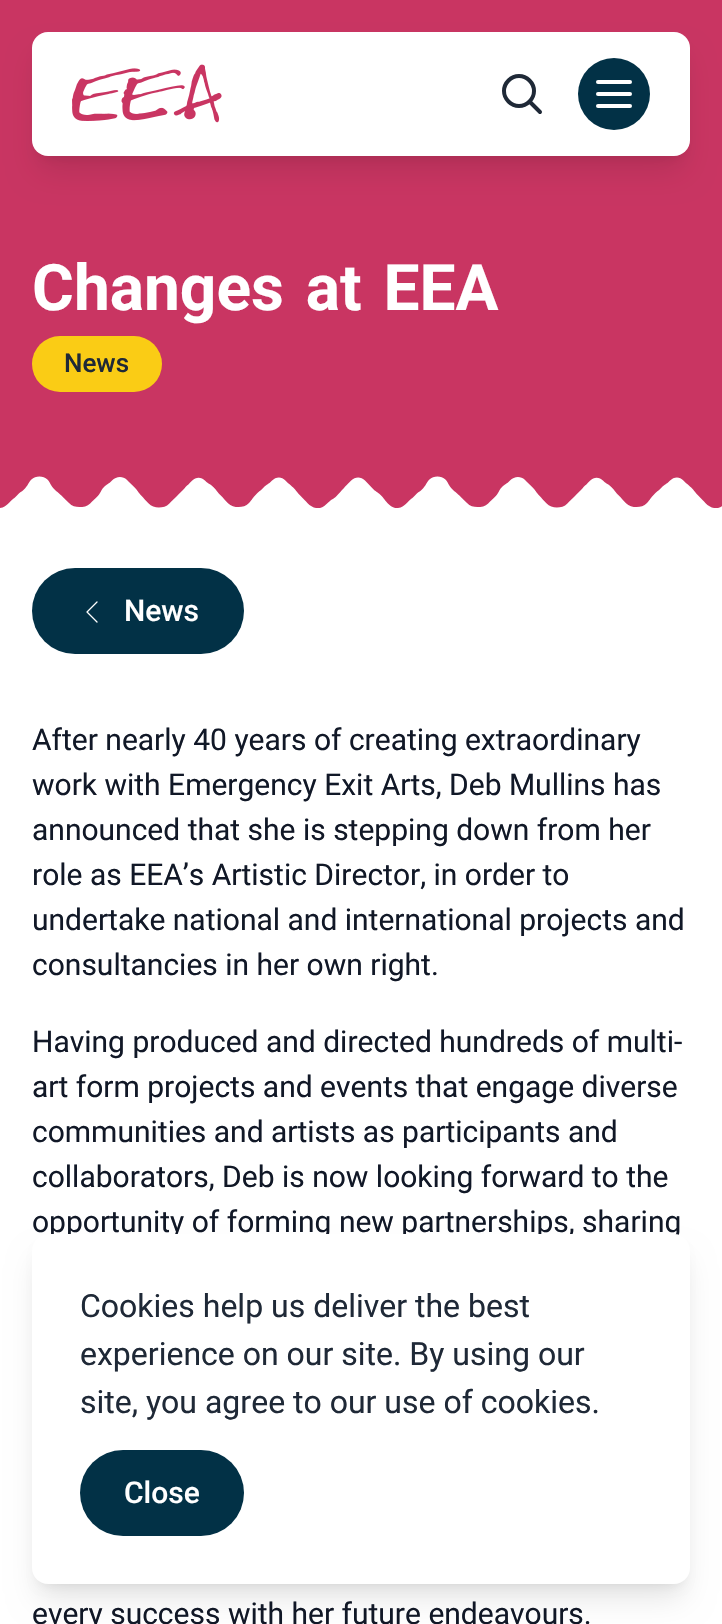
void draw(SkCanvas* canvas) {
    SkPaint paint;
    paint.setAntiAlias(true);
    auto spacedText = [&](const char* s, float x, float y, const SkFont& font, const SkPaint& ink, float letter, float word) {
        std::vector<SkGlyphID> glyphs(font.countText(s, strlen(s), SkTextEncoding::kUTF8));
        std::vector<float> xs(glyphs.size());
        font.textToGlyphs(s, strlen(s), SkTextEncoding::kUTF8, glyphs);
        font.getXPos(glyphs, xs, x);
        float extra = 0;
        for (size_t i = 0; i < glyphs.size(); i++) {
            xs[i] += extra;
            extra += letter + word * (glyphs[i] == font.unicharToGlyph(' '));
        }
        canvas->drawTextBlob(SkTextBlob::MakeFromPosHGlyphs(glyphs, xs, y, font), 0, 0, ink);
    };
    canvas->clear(0xFFFFFFFF);
    paint.setColor(0xFFC93562);
    canvas->drawRect(SkRect::MakeXYWH(0, 0, 722, 472), paint);
    paint.setColor(0x1A000000);
    paint.setMaskFilter(SkMaskFilter::MakeBlur(kNormal_SkBlurStyle, 6));
    canvas->drawRoundRect(SkRect::MakeXYWH(40, 48, 642, 108), 8, 8, paint);
    paint.setMaskFilter(nullptr);
    paint.setMaskFilter(SkMaskFilter::MakeBlur(kNormal_SkBlurStyle, 15));
    canvas->drawRoundRect(SkRect::MakeXYWH(38, 58, 646, 112), 10, 10, paint);
    paint.setMaskFilter(nullptr);
    paint.setColor(0xFFFFFFFF);
    canvas->drawRoundRect(SkRect::MakeXYWH(32, 32, 658, 124), 16, 16, paint);
    canvas->drawImageRect(SkImages::DeferredFromEncodedData(SkData::MakeFromFileName("img1.png")), SkRect::MakeXYWH(72, 64, 150, 59), SkSamplingOptions());
    paint.setStyle(SkPaint::kStroke_Style);
    paint.setStrokeWidth(4);
    paint.setStrokeCap(SkPaint::kRound_Cap);
    paint.setStrokeJoin(SkPaint::kRound_Join);
    paint.setColor(0xFF1F2937);
    canvas->drawPath(SkPathBuilder().moveTo(540, 112).lineTo(529.5f, 101.5f).moveTo(529.5f, 101.5f).cubicTo(535.5f, 95.5f, 535.5f, 86.5f, 529.5f, 80.5f).cubicTo(523.5f, 74.5f, 514.5f, 74.5f, 508.5f, 80.5f).cubicTo(502.5f, 86.5f, 502.5f, 95.5f, 508.5f, 101.5f).cubicTo(514.5f, 107.5f, 523.5f, 107.5f, 529.5f, 101.5f).close().detach(), paint);
    paint.setStyle(SkPaint::kFill_Style);
    paint.setColor(0xFF023146);
    canvas->drawCircle(614, 94, 36, paint);
    paint.setColor(0xFFFFFFFF);
    canvas->drawRoundRect(SkRect::MakeXYWH(596, 80, 36, 4), 2, 2, paint);
    canvas->drawRoundRect(SkRect::MakeXYWH(596, 92, 36, 4), 2, 2, paint);
    canvas->drawRoundRect(SkRect::MakeXYWH(596, 104, 36, 4), 2, 2, paint);
    SkFont font1(fontMgr->matchFamilyStyle("Roboto", SkFontStyle::Bold()), 64);
    font1.setSubpixel(true);
    spacedText("Changes at EEA", 32, 310, font1, paint, 0, 6);
    paint.setColor(0xFFFACC15);
    canvas->drawRoundRect(SkRect::MakeXYWH(32, 336, 130, 56), 28, 28, paint);
    SkFont font2(fontMgr->matchFamilyStyle("Roboto", SkFontStyle(500, SkFontStyle::kNormal_Width, SkFontStyle::kUpright_Slant)), 26);
    font2.setSubpixel(true);
    paint.setColor(0xFF1F2937);
    canvas->drawString("News", 64, 372, font2, paint);
    canvas->drawImageRect(SkImages::DeferredFromEncodedData(SkData::MakeFromFileName("img2.png")), SkRect::MakeXYWH(0, 472, 722, 36), SkSamplingOptions());
    paint.setColor(0xFF023146);
    canvas->drawRoundRect(SkRect::MakeXYWH(32, 568, 212, 86), 43, 43, paint);
    paint.setStyle(SkPaint::kStroke_Style);
    paint.setStrokeWidth(1.3f);
    paint.setColor(0xFFFFFFFF);
    canvas->drawPath(SkPathBuilder().moveTo(97, 622).lineTo(87, 612).lineTo(97, 602).detach(), paint);
    SkFont font3(fontMgr->matchFamilyStyle("Roboto", SkFontStyle(500, SkFontStyle::kNormal_Width, SkFontStyle::kUpright_Slant)), 30);
    font3.setSubpixel(true);
    paint.setStyle(SkPaint::kFill_Style);
    canvas->drawString("News", 124, 621, font3, paint);
    SkFont font4(fontMgr->matchFamilyStyle("Roboto", SkFontStyle::Normal()), 30);
    font4.setSubpixel(true);
    paint.setColor(0xFF111827);
    canvas->drawString("After nearly 40 years of creating extraordinary", 32, 750, font4, paint);
    canvas->drawString("work with Emergency Exit Arts, Deb Mullins has", 32, 795, font4, paint);
    canvas->drawString("announced that she is stepping down from her", 32, 840, font4, paint);
    canvas->drawString("role as EEA’s Artistic Director, in order to", 32, 885, font4, paint);
    canvas->drawString("undertake national and international projects and", 32, 930, font4, paint);
    canvas->drawString("consultancies in her own right.", 32, 975, font4, paint);
    canvas->drawString("Having produced and directed hundreds of multi-", 32, 1052, font4, paint);
    canvas->drawString("art form projects and events that engage diverse", 32, 1097, font4, paint);
    canvas->drawString("communities and artists as participants and", 32, 1142, font4, paint);
    canvas->drawString("collaborators, Deb is now looking forward to the", 32, 1187, font4, paint);
    canvas->drawString("opportunity of forming new partnerships, sharing", 32, 1232, font4, paint);
    canvas->drawString("every success with her future endeavours.", 32, 1624, font4, paint);
    paint.setColor(0x1A000000);
    paint.setMaskFilter(SkMaskFilter::MakeBlur(kNormal_SkBlurStyle, 6));
    canvas->drawRoundRect(SkRect::MakeXYWH(40, 1250, 642, 334), 8, 8, paint);
    paint.setMaskFilter(nullptr);
    paint.setMaskFilter(SkMaskFilter::MakeBlur(kNormal_SkBlurStyle, 15));
    canvas->drawRoundRect(SkRect::MakeXYWH(38, 1260, 646, 338), 10, 10, paint);
    paint.setMaskFilter(nullptr);
    paint.setColor(0xFFFFFFFF);
    canvas->drawRoundRect(SkRect::MakeXYWH(32, 1234, 658, 350), 16, 16, paint);
    SkFont font5(fontMgr->matchFamilyStyle("Roboto", SkFontStyle::Normal()), 32);
    font5.setSubpixel(true);
    paint.setColor(0xFF1F2937);
    canvas->drawString("Cookies help us deliver the best", 80, 1317, font5, paint);
    canvas->drawString("experience on our site. By using our", 80, 1365, font5, paint);
    canvas->drawString("site, you agree to our use of cookies.", 80, 1413, font5, paint);
    paint.setColor(0xFF023146);
    canvas->drawRoundRect(SkRect::MakeXYWH(80, 1450, 164, 86), 43, 43, paint);
    paint.setColor(0xFFFFFFFF);
    canvas->drawString("Close", 124, 1503, font3, paint);
}
